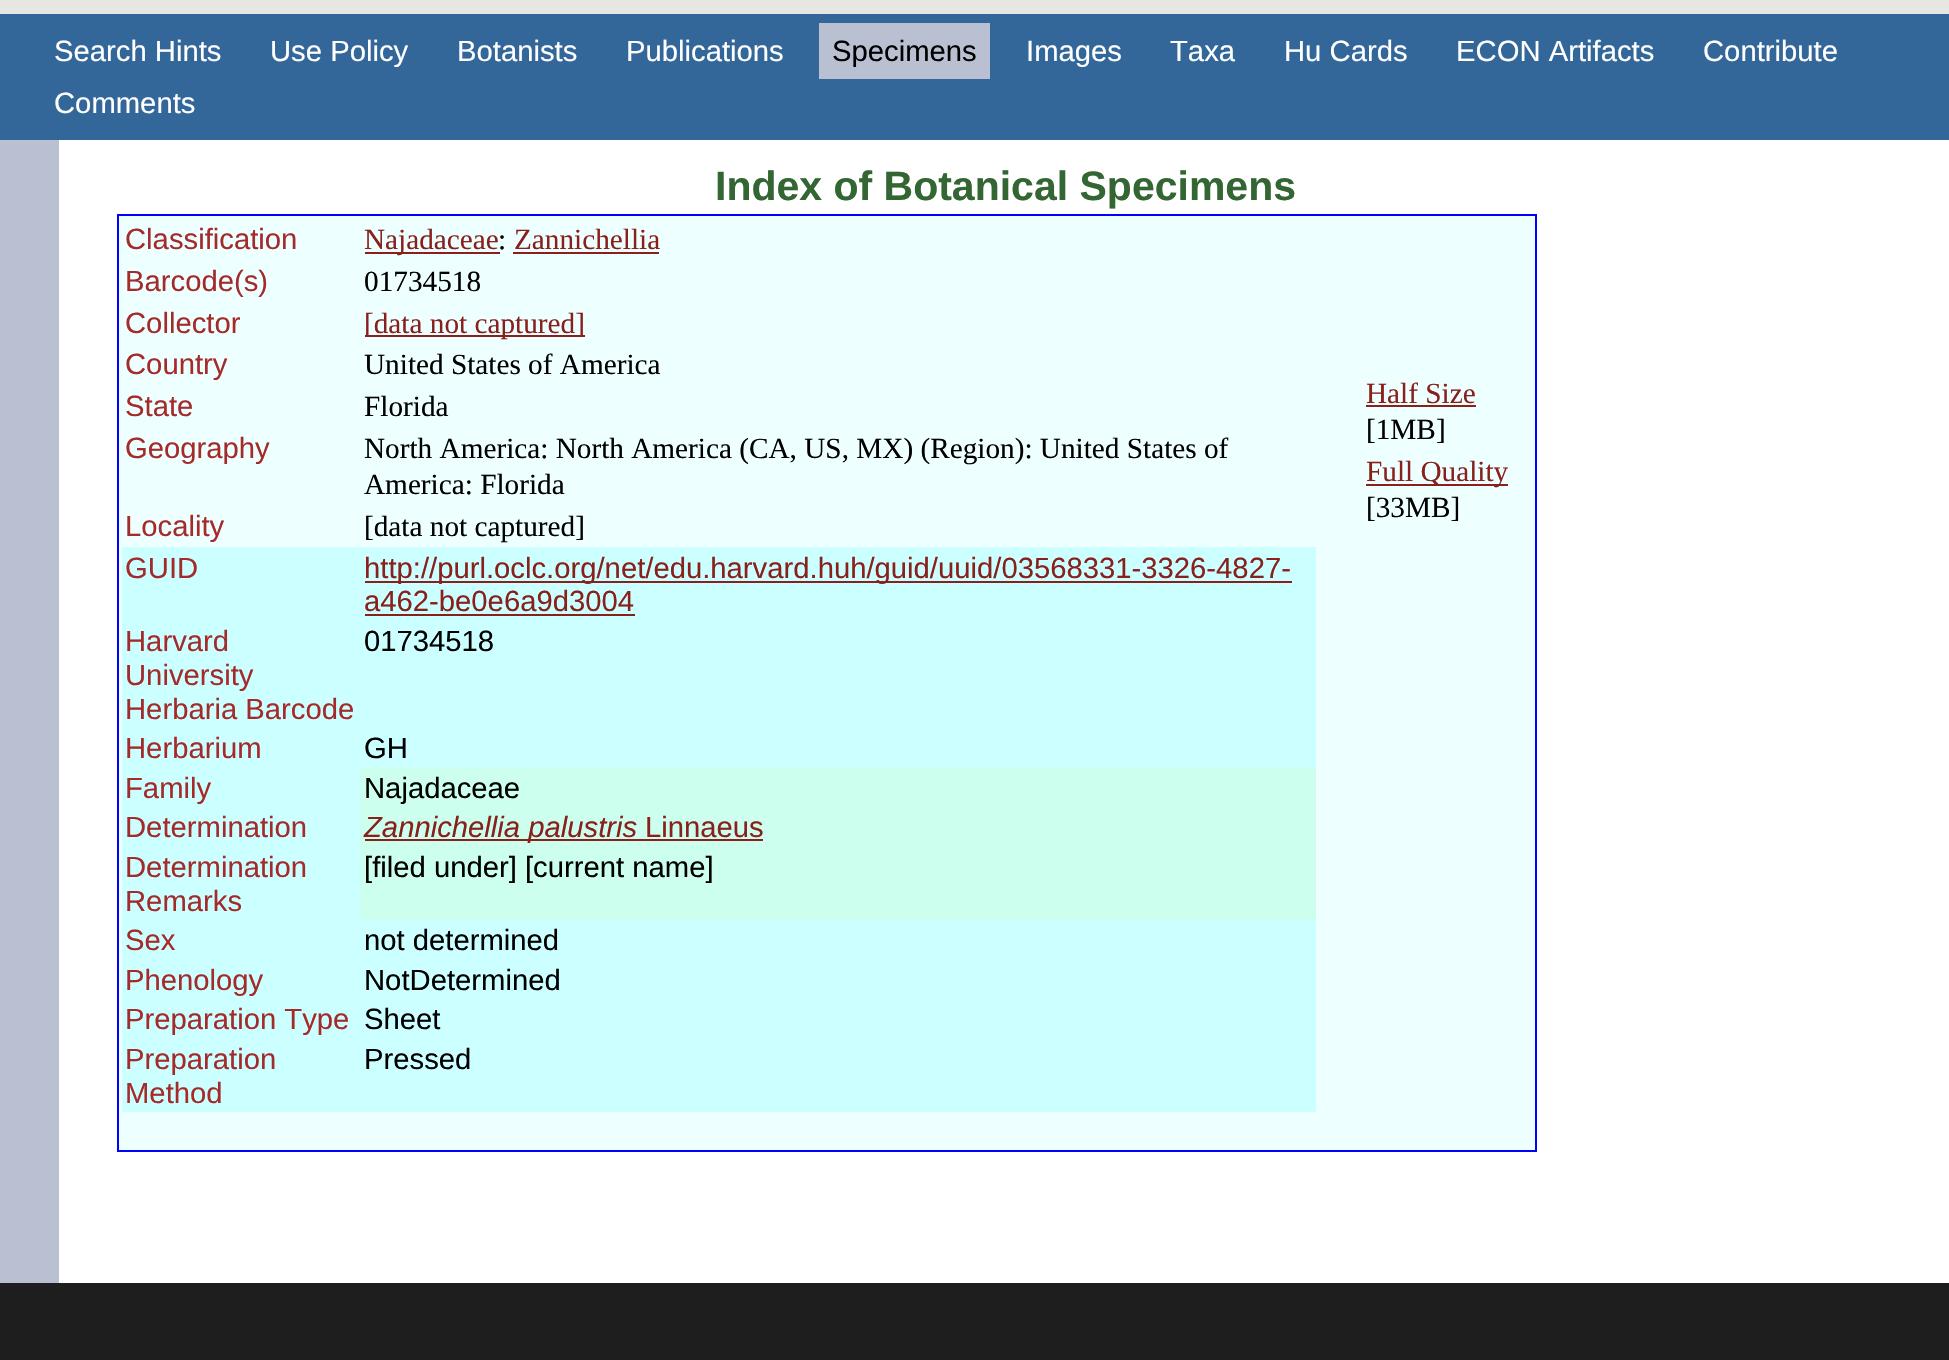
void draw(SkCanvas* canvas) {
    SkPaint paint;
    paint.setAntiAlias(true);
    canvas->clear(0xFFE6E6E3);
    paint.setColor(0xFF336699);
    canvas->drawRect(SkRect::MakeXYWH(0, 14, 1949, 126), paint);
    SkFont font1(fontMgr->matchFamilyStyle("Liberation Sans", SkFontStyle::Normal()), 29.25f);
    font1.setSubpixel(true);
    paint.setColor(0xFFFFFFFF);
    canvas->drawString("Search Hints", 54, 61, font1, paint);
    canvas->drawString("Use Policy", 270, 61, font1, paint);
    canvas->drawString("Botanists", 457, 61, font1, paint);
    canvas->drawString("Publications", 626, 61, font1, paint);
    paint.setColor(0xFFB8C0D2);
    canvas->drawRect(SkRect::MakeXYWH(819, 23, 171, 56), paint);
    paint.setColor(0xFF000000);
    canvas->drawString("Specimens", 832, 61, font1, paint);
    paint.setColor(0xFFFFFFFF);
    canvas->drawString("Images", 1026, 61, font1, paint);
    canvas->drawString("Taxa", 1170, 61, font1, paint);
    canvas->drawString("Hu Cards", 1284, 61, font1, paint);
    canvas->drawString("ECON Artifacts", 1456, 61, font1, paint);
    canvas->drawString("Contribute", 1703, 61, font1, paint);
    canvas->drawString("Comments", 54, 113, font1, paint);
    paint.setColor(0xFFB8C0D2);
    canvas->drawRect(SkRect::MakeXYWH(0, 140, 59, 1143), paint);
    paint.setColor(0xFFFFFFFF);
    canvas->drawRect(SkRect::MakeXYWH(59, 140, 1890, 1143), paint);
    SkFont font2(fontMgr->matchFamilyStyle("Liberation Sans", SkFontStyle::Bold()), 41);
    font2.setSubpixel(true);
    paint.setColor(0xFF336633);
    canvas->drawString("Index of Botanical Specimens", 715, 200, font2, paint);
    paint.setColor(0xFFEEFFFF);
    canvas->drawRect(SkRect::MakeXYWH(119, 216, 1416, 934), paint);
    paint.setColor(0xFF0000FF);
    canvas->drawRect(SkRect::MakeXYWH(117, 214, 1420, 2), paint);
    canvas->drawRect(SkRect::MakeXYWH(1535, 214, 2, 938), paint);
    canvas->drawRect(SkRect::MakeXYWH(117, 1150, 1420, 2), paint);
    canvas->drawRect(SkRect::MakeXYWH(117, 214, 2, 938), paint);
    paint.setColor(0xFFA52A2A);
    canvas->drawString("Classification", 125, 249, font1, paint);
    paint.setColor(0xFF89201B);
    canvas->drawRect(SkRect::MakeXYWH(365, 252, 135, 2), paint);
    SkFont font3(fontMgr->matchFamilyStyle("Liberation Serif", SkFontStyle::Normal()), 29.25f);
    font3.setSubpixel(true);
    canvas->drawString("Najadaceae", 364, 249, font3, paint);
    paint.setColor(0xFF000000);
    canvas->drawString(":", 498, 249, font3, paint);
    paint.setColor(0xFF89201B);
    canvas->drawString("Zannichellia", 514, 249, font3, paint);
    canvas->drawRect(SkRect::MakeXYWH(513, 252, 146, 2), paint);
    paint.setColor(0xFFA52A2A);
    canvas->drawString("Barcode(s)", 125, 291, font1, paint);
    paint.setColor(0xFF000000);
    canvas->drawString("01734518", 364, 291, font3, paint);
    paint.setColor(0xFFA52A2A);
    canvas->drawString("Collector", 125, 333, font1, paint);
    paint.setColor(0xFF89201B);
    canvas->drawRect(SkRect::MakeXYWH(365, 335, 220, 2), paint);
    canvas->drawString("[data not captured]", 364, 333, font3, paint);
    paint.setColor(0xFFA52A2A);
    canvas->drawString("Country", 125, 374, font1, paint);
    paint.setColor(0xFF000000);
    canvas->drawString("United States of America", 364, 374, font3, paint);
    paint.setColor(0xFFA52A2A);
    canvas->drawString("State", 125, 416, font1, paint);
    paint.setColor(0xFF000000);
    canvas->drawString("Florida", 364, 416, font3, paint);
    paint.setColor(0xFFA52A2A);
    canvas->drawString("Geography", 125, 458, font1, paint);
    paint.setColor(0xFF000000);
    canvas->drawString("North America: North America (CA, US, MX) (Region): United States of", 364, 458, font3, paint);
    canvas->drawString("America: Florida", 364, 494, font3, paint);
    paint.setColor(0xFFA52A2A);
    canvas->drawString("Locality", 125, 536, font1, paint);
    paint.setColor(0xFF000000);
    canvas->drawString("[data not captured]", 364, 536, font3, paint);
    paint.setColor(0xFFCCFFFF);
    canvas->drawRect(SkRect::MakeXYWH(122, 547, 1194, 220), paint);
    paint.setColor(0xFFA52A2A);
    canvas->drawString("GUID", 125, 578, font1, paint);
    paint.setColor(0xFF89201B);
    canvas->drawRect(SkRect::MakeXYWH(365, 581, 927, 2), paint);
    canvas->drawString("http://purl.oclc.org/net/edu.harvard.huh/guid/uuid/03568331-3326-4827-", 364, 578, font1, paint);
    canvas->drawString("a462-be0e6a9d3004", 364, 611, font1, paint);
    canvas->drawRect(SkRect::MakeXYWH(365, 614, 270, 2), paint);
    paint.setColor(0xFFA52A2A);
    canvas->drawString("Harvard", 125, 651, font1, paint);
    canvas->drawString("University", 125, 685, font1, paint);
    canvas->drawString("Herbaria Barcode", 125, 719, font1, paint);
    paint.setColor(0xFF000000);
    canvas->drawString("01734518", 364, 651, font1, paint);
    paint.setColor(0xFFA52A2A);
    canvas->drawString("Herbarium", 125, 758, font1, paint);
    paint.setColor(0xFF000000);
    canvas->drawString("GH", 364, 758, font1, paint);
    paint.setColor(0xFFCCFFFF);
    canvas->drawRect(SkRect::MakeXYWH(122, 767, 238, 153), paint);
    paint.setColor(0xFFA52A2A);
    canvas->drawString("Family", 125, 798, font1, paint);
    paint.setColor(0xFFCCFFEE);
    canvas->drawRect(SkRect::MakeXYWH(360, 767, 956, 153), paint);
    paint.setColor(0xFF000000);
    canvas->drawString("Najadaceae", 364, 798, font1, paint);
    paint.setColor(0xFFA52A2A);
    canvas->drawString("Determination", 125, 837, font1, paint);
    paint.setColor(0xFF89201B);
    canvas->drawRect(SkRect::MakeXYWH(365, 839, 398, 2), paint);
    SkFont font4(fontMgr->matchFamilyStyle("Liberation Sans", SkFontStyle::Italic()), 29.25f);
    font4.setSubpixel(true);
    canvas->drawString("Zannichellia palustris", 364, 837, font4, paint);
    canvas->drawString("Linnaeus", 645, 837, font1, paint);
    paint.setColor(0xFFA52A2A);
    canvas->drawString("Determination", 125, 877, font1, paint);
    canvas->drawString("Remarks", 125, 911, font1, paint);
    paint.setColor(0xFF000000);
    canvas->drawString("[filed under] [current name]", 364, 877, font1, paint);
    paint.setColor(0xFFCCFFFF);
    canvas->drawRect(SkRect::MakeXYWH(122, 920, 1194, 192), paint);
    paint.setColor(0xFFA52A2A);
    canvas->drawString("Sex", 125, 950, font1, paint);
    paint.setColor(0xFF000000);
    canvas->drawString("not determined", 364, 950, font1, paint);
    paint.setColor(0xFFA52A2A);
    canvas->drawString("Phenology", 125, 990, font1, paint);
    paint.setColor(0xFF000000);
    canvas->drawString("NotDetermined", 364, 990, font1, paint);
    paint.setColor(0xFFA52A2A);
    canvas->drawString("Preparation Type", 125, 1029, font1, paint);
    paint.setColor(0xFF000000);
    canvas->drawString("Sheet", 364, 1029, font1, paint);
    paint.setColor(0xFFA52A2A);
    canvas->drawString("Preparation", 125, 1069, font1, paint);
    canvas->drawString("Method", 125, 1103, font1, paint);
    paint.setColor(0xFF000000);
    canvas->drawString("Pressed", 364, 1069, font1, paint);
    paint.setColor(0xFF89201B);
    canvas->drawString("Half Size", 1366, 403, font3, paint);
    canvas->drawRect(SkRect::MakeXYWH(1366, 405, 110, 2), paint);
    paint.setColor(0xFF000000);
    canvas->drawString("[1MB]", 1366, 439, font3, paint);
    paint.setColor(0xFF89201B);
    canvas->drawRect(SkRect::MakeXYWH(1366, 484, 142, 2), paint);
    canvas->drawString("Full Quality", 1366, 481, font3, paint);
    paint.setColor(0xFF000000);
    canvas->drawString("[33MB]", 1366, 517, font3, paint);
    paint.setColor(0xFF1E1E1E);
    canvas->drawRect(SkRect::MakeXYWH(0, 1283, 1949, 77), paint);
}
